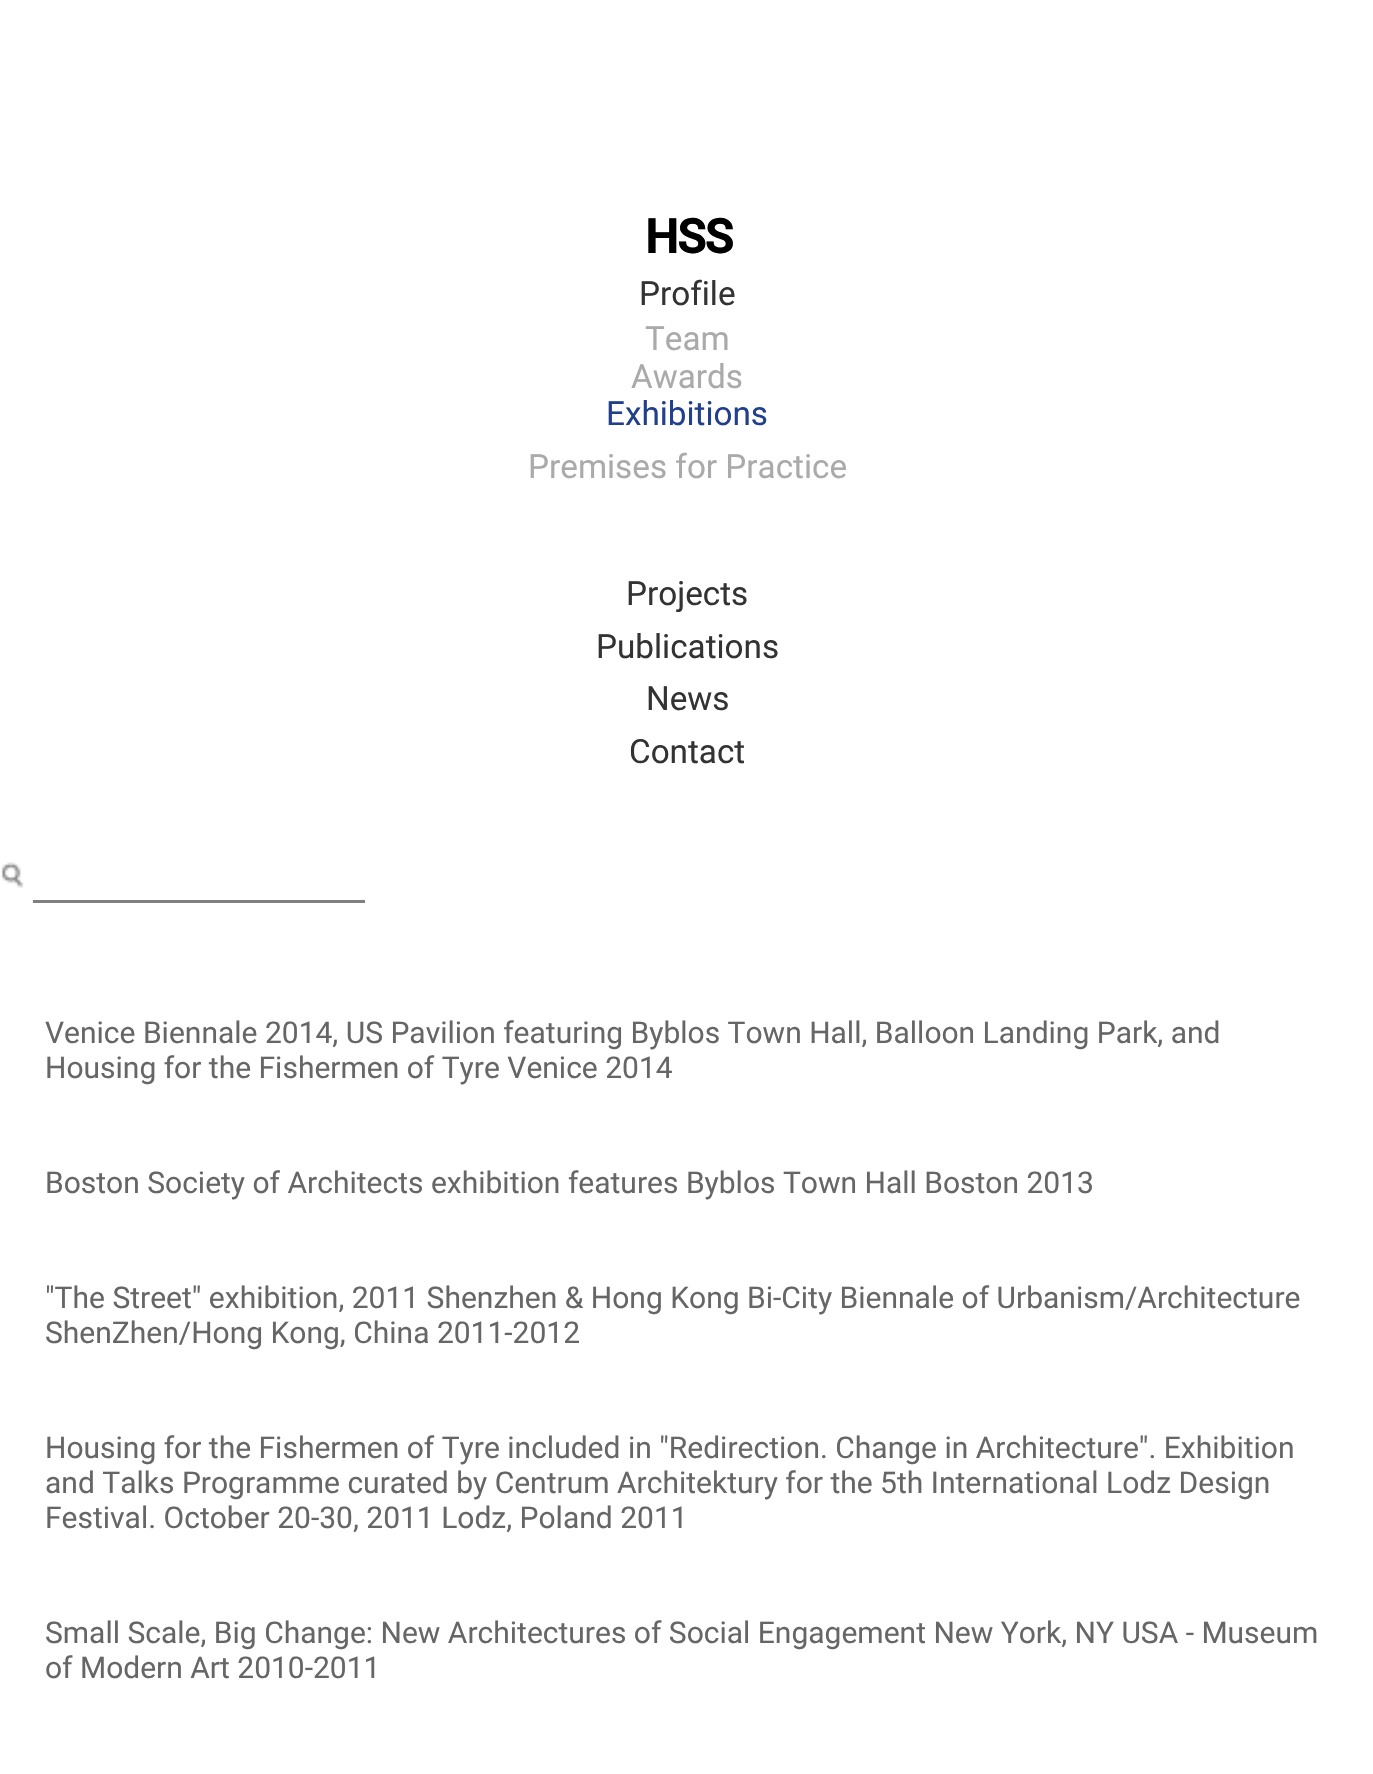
void draw(SkCanvas* canvas) {
    SkPaint paint;
    paint.setAntiAlias(true);
    auto spacedText = [&](const char* s, float x, float y, const SkFont& font, const SkPaint& ink, float letter, float word) {
        std::vector<SkGlyphID> glyphs(font.countText(s, strlen(s), SkTextEncoding::kUTF8));
        std::vector<float> xs(glyphs.size());
        font.textToGlyphs(s, strlen(s), SkTextEncoding::kUTF8, glyphs);
        font.getXPos(glyphs, xs, x);
        float extra = 0;
        for (size_t i = 0; i < glyphs.size(); i++) {
            xs[i] += extra;
            extra += letter + word * (glyphs[i] == font.unicharToGlyph(' '));
        }
        canvas->drawTextBlob(SkTextBlob::MakeFromPosHGlyphs(glyphs, xs, y, font), 0, 0, ink);
    };
    canvas->clear(0xFFFFFFFF);
    SkFont font1(fontMgr->matchFamilyStyle("Roboto", SkFontStyle::Bold()), 47);
    font1.setSubpixel(true);
    paint.setColor(0xFF000000);
    spacedText("HSS", 645, 253, font1, paint, -1, 0);
    SkFont font2(fontMgr->matchFamilyStyle("Roboto", SkFontStyle::Normal()), 33.25f);
    font2.setSubpixel(true);
    paint.setColor(0xFF333333);
    canvas->drawString("Profile", 639, 305, font2, paint);
    paint.setColor(0xFFAAAAAA);
    canvas->drawString("Team", 645, 350, font2, paint);
    canvas->drawString("Awards", 631, 388, font2, paint);
    paint.setColor(0xFF213F8C);
    canvas->drawString("Exhibitions", 606, 425, font2, paint);
    paint.setColor(0xFFAAAAAA);
    canvas->drawString("Premises for Practice", 528, 478, font2, paint);
    paint.setColor(0xFF333333);
    canvas->drawString("Projects", 626, 605, font2, paint);
    canvas->drawString("Publications", 596, 658, font2, paint);
    canvas->drawString("News", 646, 710, font2, paint);
    canvas->drawString("Contact", 629, 763, font2, paint);
    canvas->drawImageRect(SkImages::DeferredFromEncodedData(SkData::MakeFromFileName("img1.png")), SkRect::MakeXYWH(1, 862, 23, 26), SkSamplingOptions());
    paint.setColor(0xFF808080);
    canvas->drawRect(SkRect::MakeXYWH(33, 900, 332, 3), paint);
    SkFont font3(fontMgr->matchFamilyStyle("Roboto", SkFontStyle::Normal()), 30);
    font3.setSubpixel(true);
    paint.setColor(0xFF666666);
    canvas->drawString("Venice Biennale 2014, US Pavilion featuring Byblos Town Hall, Balloon Landing Park, and", 45, 1043, font3, paint);
    canvas->drawString("Housing for the Fishermen of Tyre Venice 2014", 45, 1078, font3, paint);
    canvas->drawString("Boston Society of Architects exhibition features Byblos Town Hall Boston 2013", 45, 1193, font3, paint);
    canvas->drawString("\"The Street\" exhibition, 2011 Shenzhen & Hong Kong Bi-City Biennale of Urbanism/Architecture", 45, 1308, font3, paint);
    canvas->drawString("ShenZhen/Hong Kong, China 2011-2012", 45, 1343, font3, paint);
    canvas->drawString("Housing for the Fishermen of Tyre included in \"Redirection. Change in Architecture\". Exhibition", 45, 1458, font3, paint);
    canvas->drawString("and Talks Programme curated by Centrum Architektury for the 5th International Lodz Design", 45, 1493, font3, paint);
    canvas->drawString("Festival. October 20-30, 2011 Lodz, Poland 2011", 45, 1528, font3, paint);
    canvas->drawString("Small Scale, Big Change: New Architectures of Social Engagement New York, NY USA - Museum", 45, 1643, font3, paint);
    canvas->drawString("of Modern Art 2010-2011", 45, 1678, font3, paint);
}
